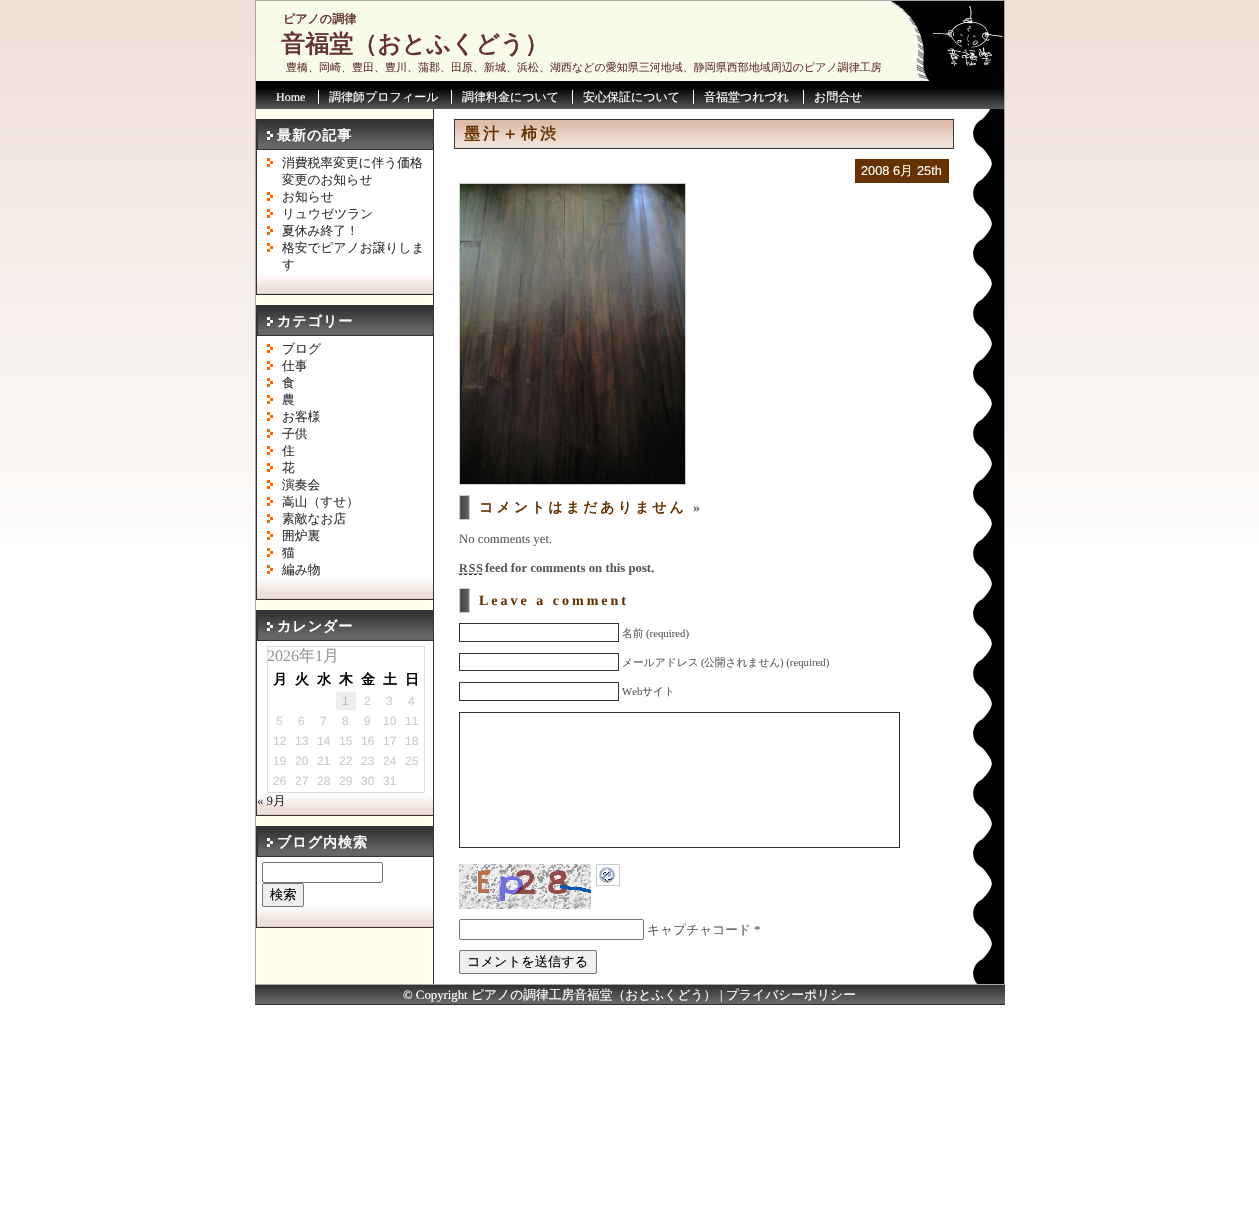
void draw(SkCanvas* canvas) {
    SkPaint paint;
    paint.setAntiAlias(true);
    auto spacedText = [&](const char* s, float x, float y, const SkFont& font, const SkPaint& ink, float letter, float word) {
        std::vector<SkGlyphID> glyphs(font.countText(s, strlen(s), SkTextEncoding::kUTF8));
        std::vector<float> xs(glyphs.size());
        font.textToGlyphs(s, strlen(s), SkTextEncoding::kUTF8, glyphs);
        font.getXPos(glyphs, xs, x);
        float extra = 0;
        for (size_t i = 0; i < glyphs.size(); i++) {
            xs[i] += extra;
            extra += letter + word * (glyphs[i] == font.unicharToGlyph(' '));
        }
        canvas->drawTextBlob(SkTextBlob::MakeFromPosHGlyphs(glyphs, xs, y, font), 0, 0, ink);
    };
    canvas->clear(0xFFFFFFFF);
    canvas->drawImageRect(SkImages::DeferredFromEncodedData(SkData::MakeFromFileName("img1.png")), SkRect::MakeXYWH(0, 0, 1259, 544), SkSamplingOptions());
    paint.setStyle(SkPaint::kStroke_Style);
    paint.setStrokeWidth(1);
    paint.setColor(0xFFA8A8A8);
    canvas->drawRect(SkRect::MakeXYWH(255.5f, 0.5f, 749, 984), paint);
    canvas->drawImageRect(SkImages::DeferredFromEncodedData(SkData::MakeFromFileName("img2.png")), SkRect::MakeXYWH(256, 1, 748, 85), SkSamplingOptions());
    SkFont font1(fontMgr->matchFamilyStyle("WenQuanYi Zen Hei", SkFontStyle::Bold()), 12);
    font1.setSubpixel(true);
    paint.setStyle(SkPaint::kFill_Style);
    paint.setColor(0xFF663333);
    canvas->drawString("ピアノの調律", 283, 23, font1, paint);
    SkFont font2(fontMgr->matchFamilyStyle("WenQuanYi Zen Hei", SkFontStyle::Bold()), 24);
    font2.setSubpixel(true);
    canvas->drawString("音福堂（おとふくどう）", 281, 52, font2, paint);
    SkFont font3(fontMgr->matchFamilyStyle("WenQuanYi Zen Hei", SkFontStyle(500, SkFontStyle::kNormal_Width, SkFontStyle::kUpright_Slant)), 11);
    font3.setSubpixel(true);
    canvas->drawString("豊橋、岡崎、豊田、豊川、蒲郡、田原、新城、浜松、湖西などの愛知県三河地域、静岡県西部地域周辺のピアノ調律工房", 286, 71, font3, paint);
    canvas->drawImageRect(SkImages::DeferredFromEncodedData(SkData::MakeFromFileName("img3.png")), SkRect::MakeXYWH(256, 86, 748, 23), SkSamplingOptions());
    SkFont font4(fontMgr->matchFamilyStyle("Liberation Serif", SkFontStyle::Normal()), 12);
    font4.setSubpixel(true);
    paint.setColor(0xFFFFFFFF);
    canvas->drawString("Home", 276, 101, font4, paint);
    SkFont font5(fontMgr->matchFamilyStyle("WenQuanYi Zen Hei", SkFontStyle(500, SkFontStyle::kNormal_Width, SkFontStyle::kUpright_Slant)), 12);
    font5.setSubpixel(true);
    canvas->drawString("調律師プロフィール", 329, 101, font5, paint);
    canvas->drawRect(SkRect::MakeXYWH(318, 90, 1, 14), paint);
    canvas->drawString("調律料金について", 462, 101, font5, paint);
    canvas->drawRect(SkRect::MakeXYWH(451, 90, 1, 14), paint);
    canvas->drawString("安心保証について", 583, 101, font5, paint);
    canvas->drawRect(SkRect::MakeXYWH(572, 90, 1, 14), paint);
    canvas->drawString("音福堂つれづれ", 704, 101, font5, paint);
    canvas->drawRect(SkRect::MakeXYWH(693, 90, 1, 14), paint);
    canvas->drawString("お問合せ", 814, 101, font5, paint);
    canvas->drawRect(SkRect::MakeXYWH(803, 90, 1, 14), paint);
    canvas->drawImageRect(SkImages::DeferredFromEncodedData(SkData::MakeFromFileName("img4.png")), SkRect::MakeXYWH(256, 109, 748, 875), SkSamplingOptions());
    canvas->drawRect(SkRect::MakeXYWH(257, 150, 176, 124), paint);
    canvas->drawImageRect(SkImages::DeferredFromEncodedData(SkData::MakeFromFileName("img5.png")), SkRect::MakeXYWH(257, 274, 176, 20), SkSamplingOptions());
    paint.setStyle(SkPaint::kStroke_Style);
    paint.setColor(0xFF333333);
    canvas->drawRect(SkRect::MakeXYWH(256.5f, 119.5f, 177, 175), paint);
    canvas->drawImageRect(SkImages::DeferredFromEncodedData(SkData::MakeFromFileName("img6.png")), SkRect::MakeXYWH(257, 120, 176, 30), SkSamplingOptions());
    SkFont font6(fontMgr->matchFamilyStyle("WenQuanYi Zen Hei", SkFontStyle::Bold()), 14);
    font6.setSubpixel(true);
    paint.setStyle(SkPaint::kFill_Style);
    paint.setColor(0xFFFFFFFF);
    spacedText("最新の記事", 277, 140, font6, paint, 1, 0);
    canvas->drawImageRect(SkImages::DeferredFromEncodedData(SkData::MakeFromFileName("img7.png")), SkRect::MakeXYWH(267, 158, 6, 9), SkSamplingOptions());
    SkFont font7(fontMgr->matchFamilyStyle("WenQuanYi Zen Hei", SkFontStyle(500, SkFontStyle::kNormal_Width, SkFontStyle::kUpright_Slant)), 12.75f);
    font7.setSubpixel(true);
    paint.setColor(0xFF333333);
    canvas->drawString("消費税率変更に伴う価格", 282, 167, font7, paint);
    canvas->drawString("変更のお知らせ", 282, 184, font7, paint);
    canvas->drawImageRect(SkImages::DeferredFromEncodedData(SkData::MakeFromFileName("img7.png")), SkRect::MakeXYWH(267, 192, 6, 9), SkSamplingOptions());
    canvas->drawString("お知らせ", 282, 201, font7, paint);
    canvas->drawImageRect(SkImages::DeferredFromEncodedData(SkData::MakeFromFileName("img7.png")), SkRect::MakeXYWH(267, 209, 6, 9), SkSamplingOptions());
    canvas->drawString("リュウゼツラン", 282, 218, font7, paint);
    canvas->drawImageRect(SkImages::DeferredFromEncodedData(SkData::MakeFromFileName("img7.png")), SkRect::MakeXYWH(267, 226, 6, 9), SkSamplingOptions());
    canvas->drawString("夏休み終了！", 282, 235, font7, paint);
    canvas->drawImageRect(SkImages::DeferredFromEncodedData(SkData::MakeFromFileName("img7.png")), SkRect::MakeXYWH(267, 243, 6, 9), SkSamplingOptions());
    canvas->drawString("格安でピアノお譲りしま", 282, 252, font7, paint);
    canvas->drawString("す", 282, 269, font7, paint);
    paint.setColor(0xFFFFFFFF);
    canvas->drawRect(SkRect::MakeXYWH(257, 336, 176, 243), paint);
    canvas->drawImageRect(SkImages::DeferredFromEncodedData(SkData::MakeFromFileName("img5.png")), SkRect::MakeXYWH(257, 579, 176, 20), SkSamplingOptions());
    paint.setStyle(SkPaint::kStroke_Style);
    paint.setColor(0xFF333333);
    canvas->drawRect(SkRect::MakeXYWH(256.5f, 305.5f, 177, 294), paint);
    canvas->drawImageRect(SkImages::DeferredFromEncodedData(SkData::MakeFromFileName("img6.png")), SkRect::MakeXYWH(257, 306, 176, 30), SkSamplingOptions());
    paint.setStyle(SkPaint::kFill_Style);
    paint.setColor(0xFFFFFFFF);
    spacedText("カテゴリー", 277, 326, font6, paint, 1, 0);
    canvas->drawImageRect(SkImages::DeferredFromEncodedData(SkData::MakeFromFileName("img7.png")), SkRect::MakeXYWH(267, 344, 6, 9), SkSamplingOptions());
    paint.setColor(0xFF333333);
    canvas->drawString("ブログ", 282, 353, font7, paint);
    canvas->drawImageRect(SkImages::DeferredFromEncodedData(SkData::MakeFromFileName("img7.png")), SkRect::MakeXYWH(267, 361, 6, 9), SkSamplingOptions());
    canvas->drawString("仕事", 282, 370, font7, paint);
    canvas->drawImageRect(SkImages::DeferredFromEncodedData(SkData::MakeFromFileName("img7.png")), SkRect::MakeXYWH(267, 378, 6, 9), SkSamplingOptions());
    canvas->drawString("食", 282, 387, font7, paint);
    canvas->drawImageRect(SkImages::DeferredFromEncodedData(SkData::MakeFromFileName("img7.png")), SkRect::MakeXYWH(267, 395, 6, 9), SkSamplingOptions());
    canvas->drawString("農", 282, 404, font7, paint);
    canvas->drawImageRect(SkImages::DeferredFromEncodedData(SkData::MakeFromFileName("img7.png")), SkRect::MakeXYWH(267, 412, 6, 9), SkSamplingOptions());
    canvas->drawString("お客様", 282, 421, font7, paint);
    canvas->drawImageRect(SkImages::DeferredFromEncodedData(SkData::MakeFromFileName("img7.png")), SkRect::MakeXYWH(267, 429, 6, 9), SkSamplingOptions());
    canvas->drawString("子供", 282, 438, font7, paint);
    canvas->drawImageRect(SkImages::DeferredFromEncodedData(SkData::MakeFromFileName("img7.png")), SkRect::MakeXYWH(267, 446, 6, 9), SkSamplingOptions());
    canvas->drawString("住", 282, 455, font7, paint);
    canvas->drawImageRect(SkImages::DeferredFromEncodedData(SkData::MakeFromFileName("img7.png")), SkRect::MakeXYWH(267, 463, 6, 9), SkSamplingOptions());
    canvas->drawString("花", 282, 472, font7, paint);
    canvas->drawImageRect(SkImages::DeferredFromEncodedData(SkData::MakeFromFileName("img7.png")), SkRect::MakeXYWH(267, 480, 6, 9), SkSamplingOptions());
    canvas->drawString("演奏会", 282, 489, font7, paint);
    canvas->drawImageRect(SkImages::DeferredFromEncodedData(SkData::MakeFromFileName("img7.png")), SkRect::MakeXYWH(267, 497, 6, 9), SkSamplingOptions());
    canvas->drawString("嵩山（すせ）", 282, 506, font7, paint);
    canvas->drawImageRect(SkImages::DeferredFromEncodedData(SkData::MakeFromFileName("img7.png")), SkRect::MakeXYWH(267, 514, 6, 9), SkSamplingOptions());
    canvas->drawString("素敵なお店", 282, 523, font7, paint);
    canvas->drawImageRect(SkImages::DeferredFromEncodedData(SkData::MakeFromFileName("img7.png")), SkRect::MakeXYWH(267, 531, 6, 9), SkSamplingOptions());
    canvas->drawString("囲炉裏", 282, 540, font7, paint);
    canvas->drawImageRect(SkImages::DeferredFromEncodedData(SkData::MakeFromFileName("img7.png")), SkRect::MakeXYWH(267, 548, 6, 9), SkSamplingOptions());
    canvas->drawString("猫", 282, 557, font7, paint);
    canvas->drawImageRect(SkImages::DeferredFromEncodedData(SkData::MakeFromFileName("img7.png")), SkRect::MakeXYWH(267, 565, 6, 9), SkSamplingOptions());
    canvas->drawString("編み物", 282, 574, font7, paint);
    paint.setColor(0xFFFFFFFF);
    canvas->drawRect(SkRect::MakeXYWH(257, 641, 176, 154), paint);
    canvas->drawImageRect(SkImages::DeferredFromEncodedData(SkData::MakeFromFileName("img5.png")), SkRect::MakeXYWH(257, 795, 176, 20), SkSamplingOptions());
    paint.setStyle(SkPaint::kStroke_Style);
    paint.setColor(0xFF333333);
    canvas->drawRect(SkRect::MakeXYWH(256.5f, 610.5f, 177, 205), paint);
    canvas->drawImageRect(SkImages::DeferredFromEncodedData(SkData::MakeFromFileName("img6.png")), SkRect::MakeXYWH(257, 611, 176, 30), SkSamplingOptions());
    paint.setStyle(SkPaint::kFill_Style);
    paint.setColor(0xFFFFFFFF);
    spacedText("カレンダー", 277, 631, font6, paint, 1, 0);
    paint.setStyle(SkPaint::kStroke_Style);
    paint.setColor(0xFFDDDDDD);
    canvas->drawRect(SkRect::MakeXYWH(267.5f, 646.5f, 157, 146), paint);
    SkFont font8(fontMgr->matchFamilyStyle("Liberation Serif", SkFontStyle::Normal()), 16);
    font8.setSubpixel(true);
    paint.setStyle(SkPaint::kFill_Style);
    paint.setColor(0xFF999999);
    canvas->drawString("2026", 267, 661, font8, paint);
    SkFont font9(fontMgr->matchFamilyStyle("WenQuanYi Zen Hei", SkFontStyle(500, SkFontStyle::kNormal_Width, SkFontStyle::kUpright_Slant)), 16);
    font9.setSubpixel(true);
    canvas->drawString("年", 299, 661, font9, paint);
    canvas->drawString("1", 315, 661, font8, paint);
    canvas->drawString("月", 323, 661, font9, paint);
    paint.setColor(0xFF000000);
    canvas->drawString("月", 273, 684, font6, paint);
    canvas->drawString("火", 295, 684, font6, paint);
    canvas->drawString("水", 317, 684, font6, paint);
    canvas->drawString("木", 339, 684, font6, paint);
    canvas->drawString("金", 361, 684, font6, paint);
    canvas->drawString("土", 383, 684, font6, paint);
    canvas->drawString("日", 405, 684, font6, paint);
    paint.setColor(0xFFEEEEEE);
    canvas->drawRect(SkRect::MakeXYWH(336, 692, 20, 18), paint);
    SkFont font10(fontMgr->matchFamilyStyle("Liberation Sans", SkFontStyle::Normal()), 12);
    font10.setSubpixel(true);
    paint.setColor(0xFFBBBBBB);
    canvas->drawString("1", 342, 705, font10, paint);
    paint.setColor(0xFFCCCCCC);
    canvas->drawString("2", 364, 705, font10, paint);
    canvas->drawString("3", 386, 705, font10, paint);
    canvas->drawString("4", 408, 705, font10, paint);
    canvas->drawString("5", 276, 725, font10, paint);
    canvas->drawString("6", 298, 725, font10, paint);
    canvas->drawString("7", 320, 725, font10, paint);
    canvas->drawString("8", 342, 725, font10, paint);
    canvas->drawString("9", 364, 725, font10, paint);
    canvas->drawString("10", 383, 725, font10, paint);
    canvas->drawString("11", 405, 725, font10, paint);
    canvas->drawString("12", 273, 745, font10, paint);
    canvas->drawString("13", 295, 745, font10, paint);
    canvas->drawString("14", 317, 745, font10, paint);
    canvas->drawString("15", 339, 745, font10, paint);
    canvas->drawString("16", 361, 745, font10, paint);
    canvas->drawString("17", 383, 745, font10, paint);
    canvas->drawString("18", 405, 745, font10, paint);
    canvas->drawString("19", 273, 765, font10, paint);
    canvas->drawString("20", 295, 765, font10, paint);
    canvas->drawString("21", 317, 765, font10, paint);
    canvas->drawString("22", 339, 765, font10, paint);
    canvas->drawString("23", 361, 765, font10, paint);
    canvas->drawString("24", 383, 765, font10, paint);
    canvas->drawString("25", 405, 765, font10, paint);
    canvas->drawString("26", 273, 785, font10, paint);
    canvas->drawString("27", 295, 785, font10, paint);
    canvas->drawString("28", 317, 785, font10, paint);
    canvas->drawString("29", 339, 785, font10, paint);
    canvas->drawString("30", 361, 785, font10, paint);
    canvas->drawString("31", 383, 785, font10, paint);
    SkFont font11(fontMgr->matchFamilyStyle("Liberation Serif", SkFontStyle::Normal()), 12.75f);
    font11.setSubpixel(true);
    paint.setColor(0xFF333333);
    canvas->drawString("« 9", 257, 805, font11, paint);
    canvas->drawString("月", 273, 805, font7, paint);
    paint.setColor(0xFFFFFFFF);
    canvas->drawRect(SkRect::MakeXYWH(257, 857, 176, 50), paint);
    canvas->drawImageRect(SkImages::DeferredFromEncodedData(SkData::MakeFromFileName("img5.png")), SkRect::MakeXYWH(257, 907, 176, 20), SkSamplingOptions());
    paint.setStyle(SkPaint::kStroke_Style);
    paint.setColor(0xFF333333);
    canvas->drawRect(SkRect::MakeXYWH(256.5f, 826.5f, 177, 101), paint);
    canvas->drawImageRect(SkImages::DeferredFromEncodedData(SkData::MakeFromFileName("img6.png")), SkRect::MakeXYWH(257, 827, 176, 30), SkSamplingOptions());
    paint.setStyle(SkPaint::kFill_Style);
    paint.setColor(0xFFFFFFFF);
    spacedText("ブログ内検索", 277, 847, font6, paint, 1, 0);
    paint.setStyle(SkPaint::kStroke_Style);
    paint.setColor(0xFF767676);
    canvas->drawRoundRect(SkRect::MakeXYWH(262.5f, 862.5f, 120, 20), 1.5f, 1.5f, paint);
    paint.setStyle(SkPaint::kFill_Style);
    paint.setColor(0xFFEFEFEF);
    canvas->drawRoundRect(SkRect::MakeXYWH(262.5f, 883.5f, 41, 23), 1.5f, 1.5f, paint);
    paint.setStyle(SkPaint::kStroke_Style);
    paint.setColor(0xFF767676);
    canvas->drawRoundRect(SkRect::MakeXYWH(262.5f, 883.5f, 41, 23), 1.5f, 1.5f, paint);
    SkFont font12(fontMgr->matchFamilyStyle("WenQuanYi Zen Hei", SkFontStyle(500, SkFontStyle::kNormal_Width, SkFontStyle::kUpright_Slant)), 13.25f);
    font12.setSubpixel(true);
    paint.setStyle(SkPaint::kFill_Style);
    paint.setColor(0xFF000000);
    canvas->drawString("検索", 270, 899, font12, paint);
    canvas->drawImageRect(SkImages::DeferredFromEncodedData(SkData::MakeFromFileName("img8.png")), SkRect::MakeXYWH(454, 119, 500, 30), SkSamplingOptions());
    SkFont font13(fontMgr->matchFamilyStyle("WenQuanYi Zen Hei", SkFontStyle::Bold()), 16);
    font13.setSubpixel(true);
    paint.setColor(0xFF663300);
    spacedText("墨汁＋柿渋", 464, 139, font13, paint, 3, 0);
    canvas->drawRect(SkRect::MakeXYWH(855, 159, 94, 24), paint);
    SkFont font14(fontMgr->matchFamilyStyle("Liberation Sans", SkFontStyle::Normal()), 12.75f);
    font14.setSubpixel(true);
    paint.setColor(0xFFFFFFFF);
    canvas->drawString("2008 6", 861, 175, font14, paint);
    canvas->drawString("月", 900, 175, font7, paint);
    canvas->drawString("25th", 917, 175, font14, paint);
    paint.setStyle(SkPaint::kStroke_Style);
    paint.setColor(0xFFCCCCCC);
    canvas->drawRect(SkRect::MakeXYWH(459.5f, 183.5f, 226, 301), paint);
    canvas->drawImageRect(SkImages::DeferredFromEncodedData(SkData::MakeFromFileName("img9.png")), SkRect::MakeXYWH(460, 184, 225, 300), SkSamplingOptions());
    canvas->drawImageRect(SkImages::DeferredFromEncodedData(SkData::MakeFromFileName("img10.png")), SkRect::MakeXYWH(459, 495, 11, 25), SkSamplingOptions());
    paint.setStyle(SkPaint::kFill_Style);
    paint.setColor(0xFF663300);
    spacedText("コメントはまだありません", 479, 512, font6, paint, 3, 0);
    SkFont font15(fontMgr->matchFamilyStyle("Liberation Serif", SkFontStyle::Bold()), 14);
    font15.setSubpixel(true);
    paint.setColor(0xFF5A5959);
    spacedText("»", 693, 512, font15, paint, 3, 0);
    canvas->drawString("No comments yet.", 459, 543, font11, paint);
    SkFont font16(fontMgr->matchFamilyStyle("Liberation Serif", SkFontStyle::Bold()), 12);
    font16.setSubpixel(true);
    spacedText("RSS", 459, 572, font16, paint, 1, 0);
    paint.setStyle(SkPaint::kStroke_Style);
    paint.setColor(0xFF333333);
    paint.setPathEffect(SkDashPathEffect::Make({{3, 2}}, 0));
    canvas->drawPath(SkPathBuilder().moveTo(459, 574.5f).lineTo(482, 574.5f).detach(), paint);
    paint.setPathEffect(nullptr);
    paint.setColor(0xFF5A5959);
    paint.setPathEffect(SkDashPathEffect::Make({{1, 1}}, 0));
    canvas->drawPath(SkPathBuilder().moveTo(458.5f, 573.5f).lineTo(482, 573.5f).detach(), paint);
    paint.setPathEffect(nullptr);
    SkFont font17(fontMgr->matchFamilyStyle("Liberation Serif", SkFontStyle::Bold()), 12.75f);
    font17.setSubpixel(true);
    paint.setStyle(SkPaint::kFill_Style);
    canvas->drawString("feed for comments on this post.", 485, 572, font17, paint);
    canvas->drawImageRect(SkImages::DeferredFromEncodedData(SkData::MakeFromFileName("img10.png")), SkRect::MakeXYWH(459, 588, 11, 25), SkSamplingOptions());
    paint.setColor(0xFF663300);
    spacedText("Leave a comment", 479, 605, font15, paint, 3, 0);
    paint.setStyle(SkPaint::kStroke_Style);
    paint.setColor(0xFF333333);
    canvas->drawRect(SkRect::MakeXYWH(459.5f, 623.5f, 159, 18), paint);
    SkFont font18(fontMgr->matchFamilyStyle("WenQuanYi Zen Hei", SkFontStyle(500, SkFontStyle::kNormal_Width, SkFontStyle::kUpright_Slant)), 10.75f);
    font18.setSubpixel(true);
    paint.setStyle(SkPaint::kFill_Style);
    paint.setColor(0xFF5A5959);
    canvas->drawString("名前", 622, 637, font18, paint);
    SkFont font19(fontMgr->matchFamilyStyle("Liberation Serif", SkFontStyle::Normal()), 10.75f);
    font19.setSubpixel(true);
    canvas->drawString("(required)", 646, 637, font19, paint);
    paint.setStyle(SkPaint::kStroke_Style);
    paint.setColor(0xFF333333);
    canvas->drawRect(SkRect::MakeXYWH(459.5f, 653.5f, 159, 17), paint);
    paint.setStyle(SkPaint::kFill_Style);
    paint.setColor(0xFF5A5959);
    canvas->drawString("メールアドレス", 622, 666, font18, paint);
    canvas->drawString("(", 701, 666, font19, paint);
    canvas->drawString("公開されません", 704, 666, font18, paint);
    canvas->drawString(") (required)", 780, 666, font19, paint);
    paint.setStyle(SkPaint::kStroke_Style);
    paint.setColor(0xFF333333);
    canvas->drawRect(SkRect::MakeXYWH(459.5f, 682.5f, 159, 18), paint);
    paint.setStyle(SkPaint::kFill_Style);
    paint.setColor(0xFF5A5959);
    canvas->drawString("Web", 622, 695, font19, paint);
    canvas->drawString("サイト", 642, 695, font18, paint);
    paint.setStyle(SkPaint::kStroke_Style);
    paint.setColor(0xFF333333);
    canvas->drawRect(SkRect::MakeXYWH(459.5f, 712.5f, 440, 135), paint);
    canvas->drawImageRect(SkImages::DeferredFromEncodedData(SkData::MakeFromFileName("img11.png")), SkRect::MakeXYWH(459, 864, 132, 45), SkSamplingOptions());
    paint.setColor(0xFFCCCCCC);
    canvas->drawRect(SkRect::MakeXYWH(596.5f, 864.5f, 23, 21), paint);
    canvas->drawImageRect(SkImages::DeferredFromEncodedData(SkData::MakeFromFileName("img12.png")), SkRect::MakeXYWH(599, 867, 16, 16), SkSamplingOptions());
    paint.setColor(0xFF767676);
    canvas->drawRoundRect(SkRect::MakeXYWH(459.5f, 919.5f, 184, 20), 1.5f, 1.5f, paint);
    paint.setStyle(SkPaint::kFill_Style);
    paint.setColor(0xFF5A5959);
    canvas->drawString("キャプチャコード", 647, 934, font7, paint);
    canvas->drawString("*", 754, 934, font11, paint);
    paint.setColor(0xFFEFEFEF);
    canvas->drawRoundRect(SkRect::MakeXYWH(459.5f, 950.5f, 137, 23), 1.5f, 1.5f, paint);
    paint.setStyle(SkPaint::kStroke_Style);
    paint.setColor(0xFF767676);
    canvas->drawRoundRect(SkRect::MakeXYWH(459.5f, 950.5f, 137, 23), 1.5f, 1.5f, paint);
    paint.setStyle(SkPaint::kFill_Style);
    paint.setColor(0xFF000000);
    canvas->drawString("コメントを送信する", 467, 966, font12, paint);
    canvas->drawImageRect(SkImages::DeferredFromEncodedData(SkData::MakeFromFileName("img13.png")), SkRect::MakeXYWH(255, 985, 750, 20), SkSamplingOptions());
    paint.setColor(0xFFFFFFFF);
    canvas->drawString("© Copyright", 403, 999, font11, paint);
    canvas->drawString("ピアノの調律工房音福堂（おとふくどう）", 471, 999, font7, paint);
    canvas->drawString("|", 720, 999, font11, paint);
    canvas->drawString("プライバシーポリシー", 726, 999, font7, paint);
}
